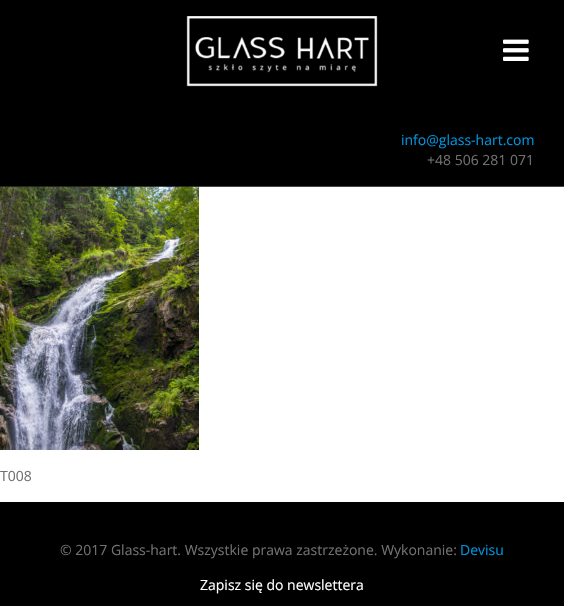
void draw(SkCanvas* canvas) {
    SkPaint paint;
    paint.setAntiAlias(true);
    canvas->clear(0xFFFFFFFF);
    paint.setColor(0xFF000000);
    canvas->drawRect(SkRect::MakeXYWH(0, 0, 564, 186), paint);
    canvas->drawImageRect(SkImages::DeferredFromEncodedData(SkData::MakeFromFileName("img1.png")), SkRect::MakeXYWH(503, 39, 26, 22), SkSamplingOptions());
    canvas->drawImageRect(SkImages::DeferredFromEncodedData(SkData::MakeFromFileName("img2.png")), SkRect::MakeXYWH(186, 16, 192, 71), SkSamplingOptions());
    SkFont font1(fontMgr->matchFamilyStyle("Open Sans", SkFontStyle::Normal()), 14);
    font1.setSubpixel(true);
    paint.setColor(0xFF0094DE);
    canvas->drawString("info@glass-hart.com", 401, 145, font1, paint);
    paint.setColor(0xFF737070);
    canvas->drawString("+48 506 281 071", 427, 165, font1, paint);
    canvas->drawImageRect(SkImages::DeferredFromEncodedData(SkData::MakeFromFileName("img3.png")), SkRect::MakeXYWH(0, 186, 199, 264), SkSamplingOptions());
    paint.setColor(0xCC1F1A17);
    canvas->drawRect(SkRect::MakeXYWH(0, 186, 564, 1), paint);
    paint.setColor(0xFF737070);
    canvas->drawString("T008", 0, 481, font1, paint);
    paint.setColor(0xFF000000);
    canvas->drawRect(SkRect::MakeXYWH(0, 502, 564, 104), paint);
    paint.setColor(0xFF737070);
    canvas->drawString("© 2017 Glass-hart. Wszystkie prawa zastrzeżone. Wykonanie:", 60, 555, font1, paint);
    paint.setColor(0xFF0094DE);
    canvas->drawString("Devisu", 460, 555, font1, paint);
    paint.setColor(0xFFFFFFFF);
    canvas->drawString("Zapisz się do newslettera", 200, 590, font1, paint);
}
